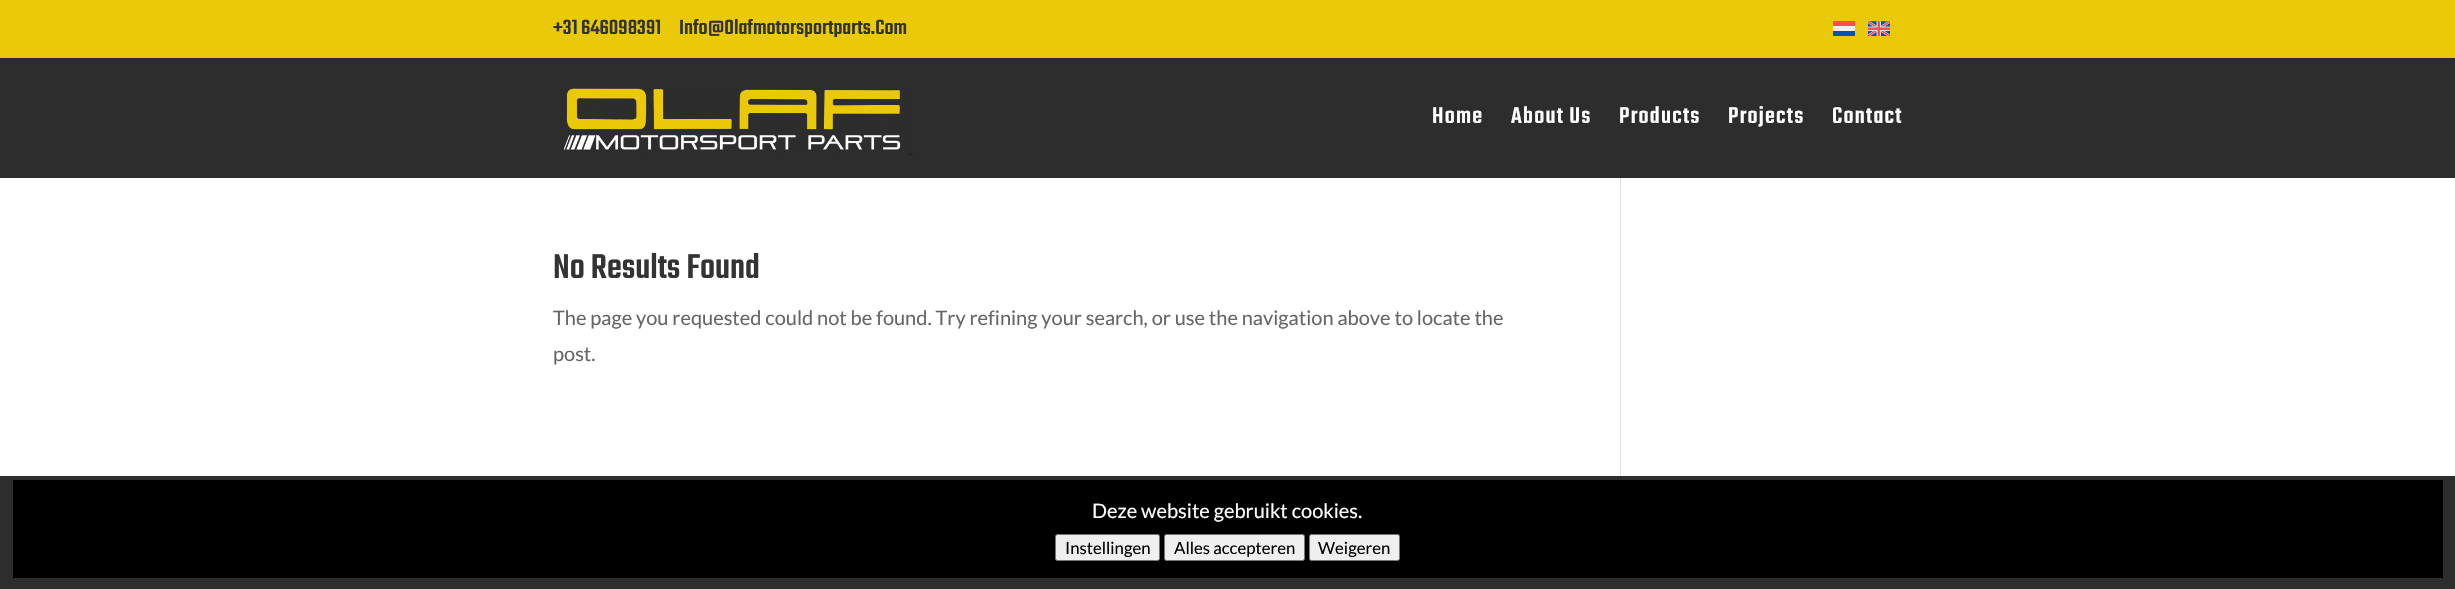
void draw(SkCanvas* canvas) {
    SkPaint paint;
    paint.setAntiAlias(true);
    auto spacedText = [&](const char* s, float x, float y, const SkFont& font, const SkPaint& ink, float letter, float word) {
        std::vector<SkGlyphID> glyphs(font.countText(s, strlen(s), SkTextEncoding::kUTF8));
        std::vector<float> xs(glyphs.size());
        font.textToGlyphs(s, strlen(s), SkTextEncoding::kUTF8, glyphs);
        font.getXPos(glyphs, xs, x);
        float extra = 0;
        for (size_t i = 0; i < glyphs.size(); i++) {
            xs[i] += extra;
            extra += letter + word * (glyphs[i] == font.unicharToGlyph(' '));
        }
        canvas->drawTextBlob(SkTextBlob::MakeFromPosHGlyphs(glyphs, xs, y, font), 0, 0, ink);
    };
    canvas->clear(0xFFFFFFFF);
    paint.setColor(0xFFEAC908);
    canvas->drawRect(SkRect::MakeXYWH(0, 0, 2455, 58), paint);
    SkFont font1(fontMgr->matchFamilyStyle("Teko", SkFontStyle(300, SkFontStyle::kNormal_Width, SkFontStyle::kUpright_Slant)), 22.5f);
    font1.setSubpixel(true);
    paint.setColor(0xFF333333);
    canvas->drawString("+31 646098391", 553, 34, font1, paint);
    canvas->drawString("Info@Olafmotorsportparts.Com", 679, 34, font1, paint);
    paint.setColor(0xFFFF4B55);
    canvas->drawRect(SkRect::MakeXYWH(1833, 21, 22, 5), paint);
    paint.setColor(0xFFF0F0F0);
    canvas->drawRect(SkRect::MakeXYWH(1833, 26, 22, 5), paint);
    paint.setColor(0xFF0052B4);
    canvas->drawRect(SkRect::MakeXYWH(1833, 31, 22, 5), paint);
    canvas->drawImageRect(SkImages::DeferredFromEncodedData(SkData::MakeFromFileName("img1.png")), SkRect::MakeXYWH(1868, 21, 22, 15), SkSamplingOptions());
    paint.setColor(0xFF2D2D2D);
    canvas->drawRect(SkRect::MakeXYWH(0, 58, 2455, 120), paint);
    canvas->drawImageRect(SkImages::DeferredFromEncodedData(SkData::MakeFromFileName("img2.png")), SkRect::MakeXYWH(563, 88, 350, 67), SkSamplingOptions());
    SkFont font2(fontMgr->matchFamilyStyle("Teko", SkFontStyle(300, SkFontStyle::kNormal_Width, SkFontStyle::kUpright_Slant)), 25);
    font2.setSubpixel(true);
    paint.setColor(0xFFFFFFFF);
    spacedText("Home", 1432, 123, font2, paint, 1.25f, 0);
    spacedText("About Us", 1511, 123, font2, paint, 1.25f, 0);
    spacedText("Products", 1619, 123, font2, paint, 1.25f, 0);
    spacedText("Projects", 1728, 123, font2, paint, 1.25f, 0);
    spacedText("Contact", 1832, 123, font2, paint, 1.25f, 0);
    SkFont font3(fontMgr->matchFamilyStyle("Teko", SkFontStyle(300, SkFontStyle::kNormal_Width, SkFontStyle::kUpright_Slant)), 37.5f);
    font3.setSubpixel(true);
    paint.setColor(0xFF333333);
    canvas->drawString("No Results Found", 553, 278, font3, paint);
    SkFont font4(fontMgr->matchFamilyStyle("Lato", SkFontStyle::Normal()), 20);
    font4.setSubpixel(true);
    paint.setColor(0xFF666666);
    canvas->drawString("The page you requested could not be found. Try refining your search, or use the navigation above to locate the", 553, 325, font4, paint);
    canvas->drawString("post.", 553, 361, font4, paint);
    paint.setColor(0xFFE2E2E2);
    canvas->drawRect(SkRect::MakeXYWH(1620, 178, 1, 298), paint);
    paint.setColor(0xFF2D2D2D);
    canvas->drawRect(SkRect::MakeXYWH(0, 476, 2455, 113), paint);
    paint.setColor(0xFF000000);
    canvas->drawRect(SkRect::MakeXYWH(13, 480, 2430, 98), paint);
    paint.setColor(0xFFFFFFFF);
    canvas->drawString("Deze website gebruikt cookies.", 1092, 518, font4, paint);
    paint.setColor(0xFFEFEFEF);
    canvas->drawRoundRect(SkRect::MakeXYWH(1055.5f, 534.5f, 104, 26), 2, 2, paint);
    paint.setStyle(SkPaint::kStroke_Style);
    paint.setStrokeWidth(1);
    paint.setColor(0xFF767676);
    canvas->drawRoundRect(SkRect::MakeXYWH(1055.5f, 534.5f, 104, 26), 2, 2, paint);
    SkFont font5(fontMgr->matchFamilyStyle("Lato", SkFontStyle::Normal()), 16.75f);
    font5.setSubpixel(true);
    paint.setStyle(SkPaint::kFill_Style);
    paint.setColor(0xFF000000);
    canvas->drawString("Instellingen", 1065, 554, font5, paint);
    paint.setColor(0xFFEFEFEF);
    canvas->drawRoundRect(SkRect::MakeXYWH(1164.5f, 534.5f, 140, 26), 2, 2, paint);
    paint.setStyle(SkPaint::kStroke_Style);
    paint.setColor(0xFF767676);
    canvas->drawRoundRect(SkRect::MakeXYWH(1164.5f, 534.5f, 140, 26), 2, 2, paint);
    paint.setStyle(SkPaint::kFill_Style);
    paint.setColor(0xFF000000);
    canvas->drawString("Alles accepteren", 1174, 554, font5, paint);
    paint.setColor(0xFFEFEFEF);
    canvas->drawRoundRect(SkRect::MakeXYWH(1309.5f, 534.5f, 90, 26), 2, 2, paint);
    paint.setStyle(SkPaint::kStroke_Style);
    paint.setColor(0xFF767676);
    canvas->drawRoundRect(SkRect::MakeXYWH(1309.5f, 534.5f, 90, 26), 2, 2, paint);
    paint.setStyle(SkPaint::kFill_Style);
    paint.setColor(0xFF000000);
    canvas->drawString("Weigeren", 1318, 554, font5, paint);
}
